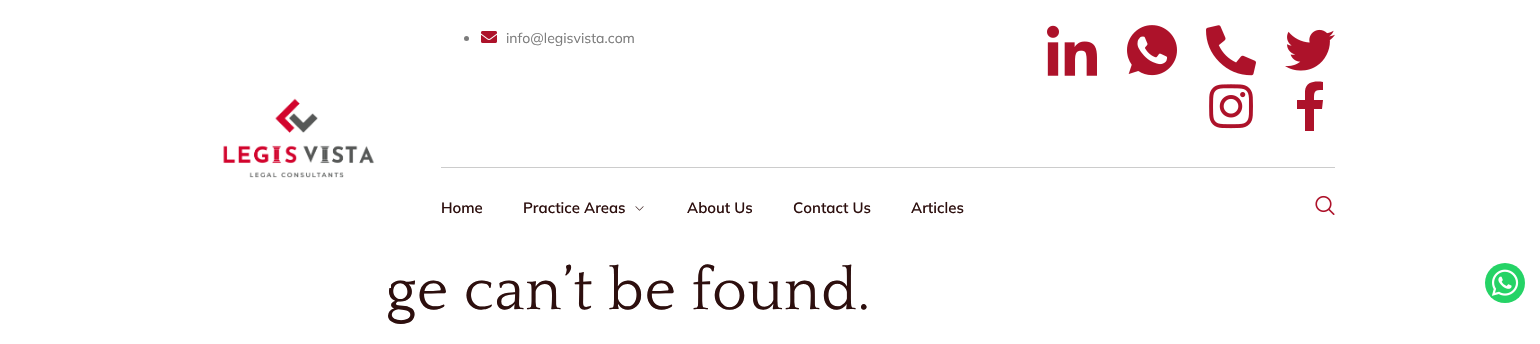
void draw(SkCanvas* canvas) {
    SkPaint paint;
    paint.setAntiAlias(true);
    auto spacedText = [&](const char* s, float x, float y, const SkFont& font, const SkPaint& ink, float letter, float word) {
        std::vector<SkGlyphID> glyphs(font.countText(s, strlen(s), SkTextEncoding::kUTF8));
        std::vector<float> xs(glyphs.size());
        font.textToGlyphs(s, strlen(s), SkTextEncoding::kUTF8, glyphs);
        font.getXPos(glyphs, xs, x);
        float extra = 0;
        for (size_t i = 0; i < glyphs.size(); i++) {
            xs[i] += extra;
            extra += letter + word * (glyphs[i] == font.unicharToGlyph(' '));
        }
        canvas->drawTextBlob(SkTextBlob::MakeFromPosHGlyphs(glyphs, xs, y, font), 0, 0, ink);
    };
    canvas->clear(0xFFFFFFFF);
    paint.setColor(0xFFCCCCCC);
    canvas->drawRect(SkRect::MakeXYWH(441, 167, 894, 1), paint);
    paint.setColor(0xFF7C7C7C);
    canvas->drawCircle(466.5f, 38.5f, 2.5f, paint);
    canvas->drawImageRect(SkImages::DeferredFromEncodedData(SkData::MakeFromFileName("img1.png")), SkRect::MakeXYWH(481, 31, 16, 12), SkSamplingOptions());
    SkFont font1(fontMgr->matchFamilyStyle("Mulish", SkFontStyle::Normal()), 14);
    font1.setSubpixel(true);
    canvas->drawString("info@legisvista.com", 506, 43, font1, paint);
    canvas->drawImageRect(SkImages::DeferredFromEncodedData(SkData::MakeFromFileName("img2.png")), SkRect::MakeXYWH(1047, 25, 50, 51), SkSamplingOptions());
    canvas->drawImageRect(SkImages::DeferredFromEncodedData(SkData::MakeFromFileName("img3.png")), SkRect::MakeXYWH(1127, 25, 50, 51), SkSamplingOptions());
    canvas->drawImageRect(SkImages::DeferredFromEncodedData(SkData::MakeFromFileName("img4.png")), SkRect::MakeXYWH(1206, 25, 50, 51), SkSamplingOptions());
    canvas->drawImageRect(SkImages::DeferredFromEncodedData(SkData::MakeFromFileName("img5.png")), SkRect::MakeXYWH(1285, 29, 50, 42), SkSamplingOptions());
    canvas->drawImageRect(SkImages::DeferredFromEncodedData(SkData::MakeFromFileName("img6.png")), SkRect::MakeXYWH(1209, 84, 44, 45), SkSamplingOptions());
    paint.setColor(0xFFAD122A);
    canvas->drawPath(SkPathBuilder().moveTo(1322, 109).lineTo(1314, 109).lineTo(1314, 131).lineTo(1305, 131).lineTo(1305, 109).lineTo(1297, 109).lineTo(1297, 100).lineTo(1305, 100).lineTo(1305, 91).cubicTo(1306, 81, 1316, 81, 1323, 82).lineTo(1323, 90).cubicTo(1314, 90, 1314, 91, 1314, 100).lineTo(1323, 100).close().detach(), paint);
    SkFont font2(fontMgr->matchFamilyStyle("Mulish", SkFontStyle(600, SkFontStyle::kNormal_Width, SkFontStyle::kUpright_Slant)), 15);
    font2.setSubpixel(true);
    paint.setColor(0xFF2D0F0E);
    canvas->drawString("Home", 441, 213, font2, paint);
    canvas->drawString("Practice Areas", 523, 213, font2, paint);
    canvas->drawImageRect(SkImages::DeferredFromEncodedData(SkData::MakeFromFileName("img7.png")), SkRect::MakeXYWH(635, 206, 9, 5), SkSamplingOptions());
    canvas->drawString("About Us", 687, 213, font2, paint);
    canvas->drawString("Contact Us", 793, 213, font2, paint);
    canvas->drawString("Articles", 911, 213, font2, paint);
    canvas->drawImageRect(SkImages::DeferredFromEncodedData(SkData::MakeFromFileName("img8.png")), SkRect::MakeXYWH(1315, 195, 20, 20), SkSamplingOptions());
    SkFont font3(fontMgr->matchFamilyStyle("Quattrocento", SkFontStyle::Normal()), 60);
    font3.setSubpixel(true);
    spacedText("ge can’t be found.", 386, 309, font3, paint, 0.5f, 0);
    paint.setColor(0xFFFFFFFF);
    canvas->drawRect(SkRect::MakeXYWH(389, 284, 2, 4), paint);
    canvas->drawImageRect(SkImages::DeferredFromEncodedData(SkData::MakeFromFileName("img9.png")), SkRect::MakeXYWH(223, 98, 152, 80), SkSamplingOptions());
    paint.setColor(0xFF25D366);
    canvas->drawCircle(1505, 283, 20, paint);
    canvas->drawImageRect(SkImages::DeferredFromEncodedData(SkData::MakeFromFileName("img10.png")), SkRect::MakeXYWH(1491, 269, 28, 27), SkSamplingOptions());
}
